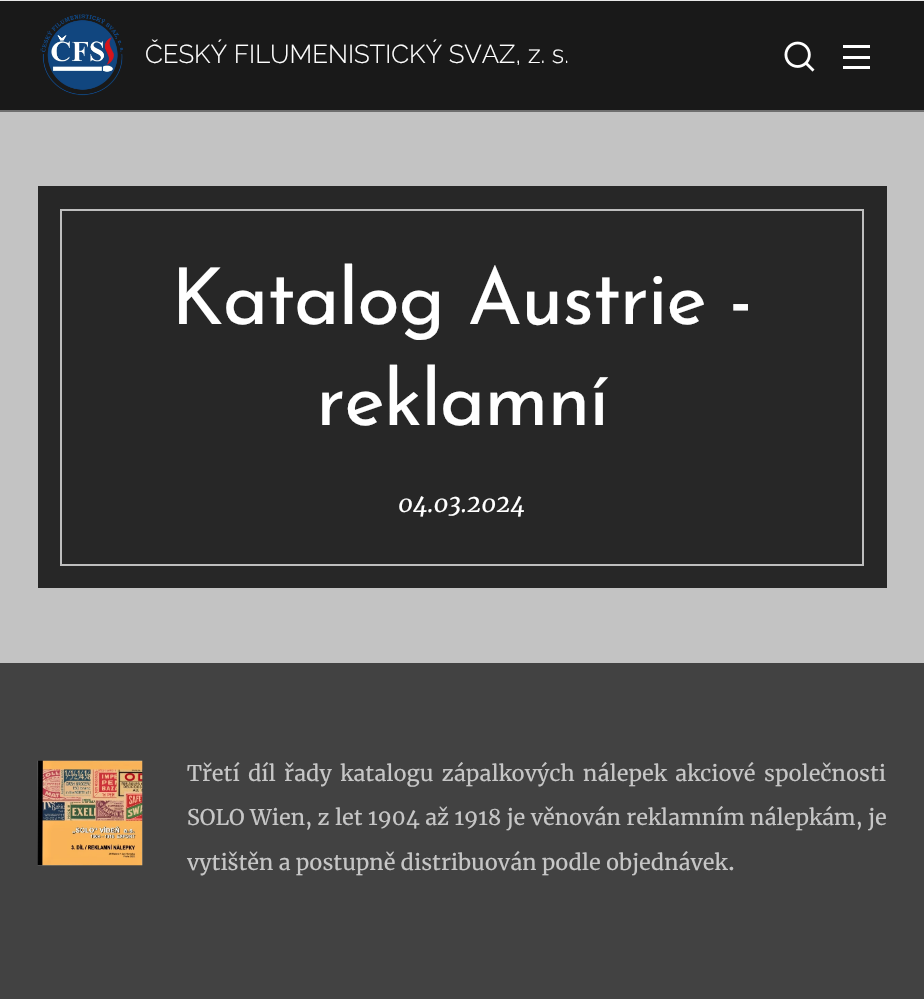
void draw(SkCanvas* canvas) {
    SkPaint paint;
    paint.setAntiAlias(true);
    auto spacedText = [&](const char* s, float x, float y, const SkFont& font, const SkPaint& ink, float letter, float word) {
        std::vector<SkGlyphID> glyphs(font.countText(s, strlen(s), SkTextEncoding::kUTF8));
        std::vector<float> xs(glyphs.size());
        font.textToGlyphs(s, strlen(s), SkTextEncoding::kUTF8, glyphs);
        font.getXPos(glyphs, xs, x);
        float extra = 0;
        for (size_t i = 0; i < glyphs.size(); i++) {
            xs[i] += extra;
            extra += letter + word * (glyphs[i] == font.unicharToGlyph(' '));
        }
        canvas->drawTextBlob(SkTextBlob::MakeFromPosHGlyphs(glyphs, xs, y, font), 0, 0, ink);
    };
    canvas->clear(0xFFC3C3C3);
    paint.setColor(0xFF191919);
    canvas->drawRect(SkRect::MakeXYWH(0, 1, 924, 109), paint);
    paint.setColor(0xFFE8E8E8);
    canvas->drawRect(SkRect::MakeXYWH(0, 0, 924, 1), paint);
    canvas->drawImageRect(SkImages::DeferredFromEncodedData(SkData::MakeFromFileName("img1.png")), SkRect::MakeXYWH(784, 41, 31, 31), SkSamplingOptions());
    paint.setColor(0xFFFFFFFF);
    canvas->drawRect(SkRect::MakeXYWH(843, 56, 27, 3), paint);
    canvas->drawRect(SkRect::MakeXYWH(843, 45, 27, 3), paint);
    canvas->drawRect(SkRect::MakeXYWH(843, 66, 27, 3), paint);
    canvas->drawImageRect(SkImages::DeferredFromEncodedData(SkData::MakeFromFileName("img2.png")), SkRect::MakeXYWH(40, 14, 83, 82), SkSamplingOptions());
    SkFont font1(fontMgr->matchFamilyStyle("Raleway", SkFontStyle(300, SkFontStyle::kNormal_Width, SkFontStyle::kUpright_Slant)), 25.75f);
    font1.setSubpixel(true);
    canvas->drawString("ČESKÝ FILUMENISTICKÝ SVAZ, z. s.", 145, 63, font1, paint);
    paint.setColor(0xFF6E6E6E);
    canvas->drawRect(SkRect::MakeXYWH(0, 110, 924, 2), paint);
    paint.setColor(0xFF272727);
    canvas->drawRect(SkRect::MakeXYWH(38, 186, 849, 402), paint);
    paint.setStyle(SkPaint::kStroke_Style);
    paint.setStrokeWidth(2);
    paint.setColor(0xFFBEBEBE);
    canvas->drawRect(SkRect::MakeXYWH(61, 210, 802, 355), paint);
    SkFont font2(fontMgr->matchFamilyStyle("Josefin Sans", SkFontStyle::Normal()), 78);
    font2.setSubpixel(true);
    paint.setStyle(SkPaint::kFill_Style);
    paint.setColor(0xFFFFFFFF);
    spacedText("Katalog Austrie -", 171, 324, font2, paint, -1.2f, 0);
    spacedText("reklamní", 316, 425, font2, paint, -1.2f, 0);
    SkFont font3(fontMgr->matchFamilyStyle("Merriweather", SkFontStyle::Italic()), 24);
    font3.setSubpixel(true);
    canvas->drawString("04.03.2024", 398, 512, font3, paint);
    paint.setColor(0xFF424242);
    canvas->drawRect(SkRect::MakeXYWH(0, 663, 924, 336), paint);
    canvas->drawImageRect(SkImages::DeferredFromEncodedData(SkData::MakeFromFileName("img3.png")), SkRect::MakeXYWH(37, 760, 106, 106), SkSamplingOptions());
    SkFont font4(fontMgr->matchFamilyStyle("Merriweather", SkFontStyle::Normal()), 21.6f);
    font4.setSubpixel(true);
    paint.setColor(0xFFC6C6C6);
    spacedText("Třetí díl řady katalogu zápalkových nálepek akciové společnosti", 187, 781, font4, paint, 0, 3.25f);
    spacedText("SOLO Wien, z let 1904 až 1918 je věnován reklamním nálepkám, je", 187, 825, font4, paint, 0, 0.25f);
    canvas->drawString("vytištěn a postupně distribuován podle objednávek", 187, 870, font4, paint);
    SkFont font5(fontMgr->matchFamilyStyle("Merriweather", SkFontStyle::Normal()), 25.75f);
    font5.setSubpixel(true);
    canvas->drawString(".", 728, 870, font5, paint);
}
